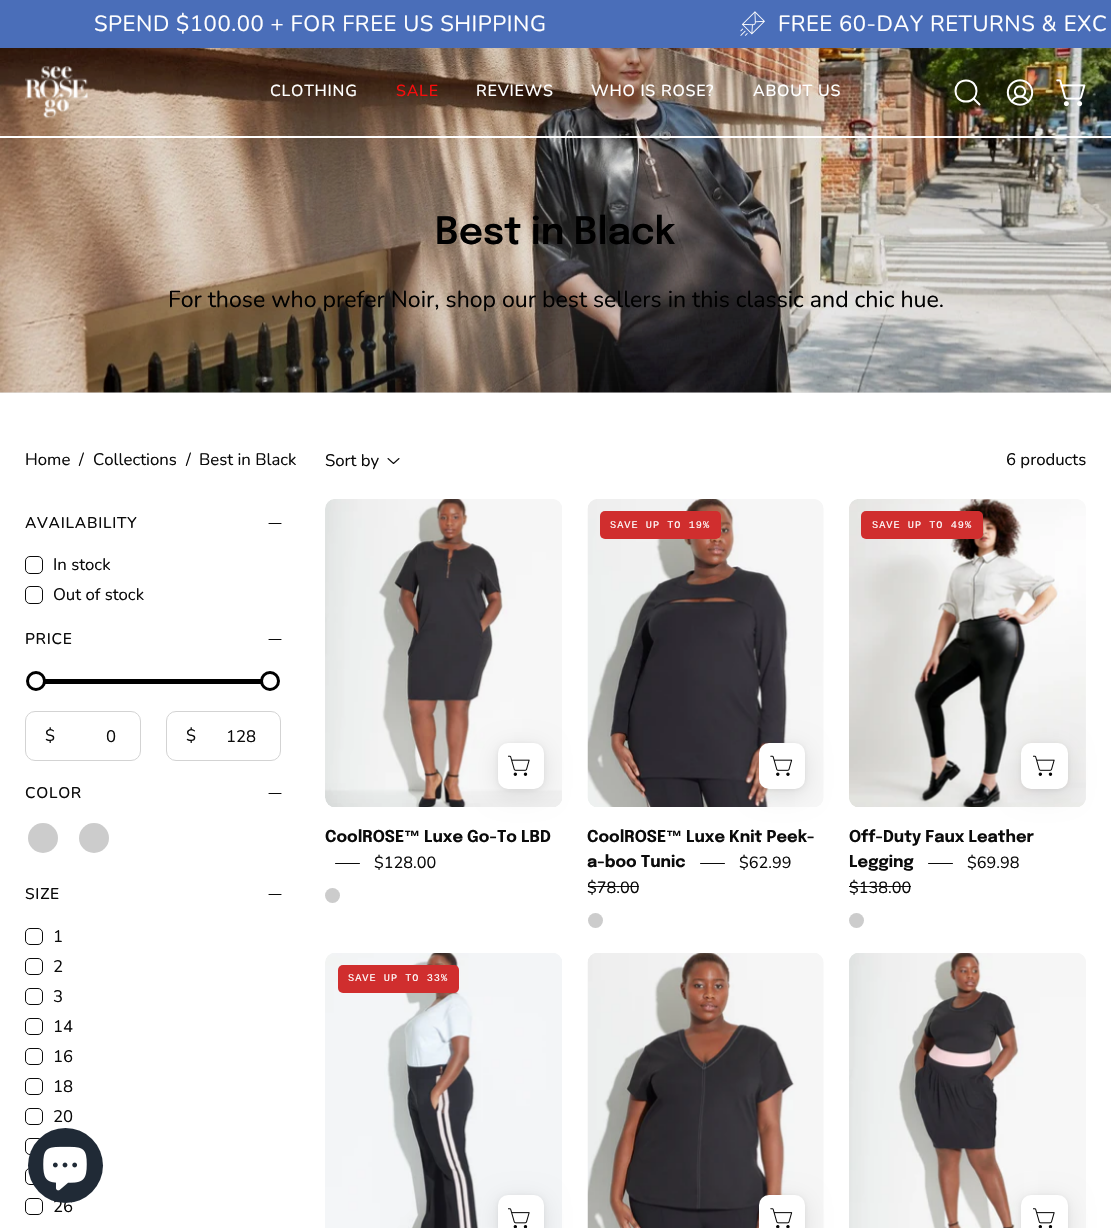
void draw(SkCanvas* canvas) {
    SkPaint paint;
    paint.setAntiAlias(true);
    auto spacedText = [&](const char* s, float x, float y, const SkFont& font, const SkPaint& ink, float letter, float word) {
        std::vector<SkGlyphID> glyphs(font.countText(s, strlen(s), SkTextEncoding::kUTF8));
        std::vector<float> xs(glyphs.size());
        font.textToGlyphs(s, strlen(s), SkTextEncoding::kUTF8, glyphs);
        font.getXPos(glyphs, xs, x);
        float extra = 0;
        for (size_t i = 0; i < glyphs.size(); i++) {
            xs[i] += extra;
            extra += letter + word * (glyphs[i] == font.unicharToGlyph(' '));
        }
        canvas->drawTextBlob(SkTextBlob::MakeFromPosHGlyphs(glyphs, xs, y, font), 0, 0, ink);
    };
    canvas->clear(0xFFFFFFFF);
    paint.setColor(0xFF4A6EB9);
    canvas->drawRect(SkRect::MakeXYWH(0, 0, 1111, 48), paint);
    SkFont font1(fontMgr->matchFamilyStyle("Nunito", SkFontStyle::Normal()), 22.05f);
    font1.setSubpixel(true);
    paint.setColor(0xFFFFFFFF);
    spacedText("SPEND $100.00 + FOR FREE US SHIPPING", 94, 31, font1, paint, 0.55f, 0);
    canvas->drawImageRect(SkImages::DeferredFromEncodedData(SkData::MakeFromFileName("img1.png")), SkRect::MakeXYWH(740, 11, 25, 25), SkSamplingOptions());
    spacedText("FREE 60-DAY RETURNS & EXC", 778, 31, font1, paint, 0.55f, 0);
    paint.setColor(0xFFE6E6E6);
    canvas->drawRect(SkRect::MakeXYWH(0, 392, 1111, 1), paint);
    canvas->drawImageRect(SkImages::DeferredFromEncodedData(SkData::MakeFromFileName("img5.png")), SkRect::MakeXYWH(0, 48, 1111, 345), SkSamplingOptions());
    {
        const SkColor colors[] = {0x26FFFFFF, 0x00FFFFFF};
        const float stops[] = {0, 0.65f};
        SkMatrix m = SkMatrix::Translate(556, 264).preScale(938, 252);
        paint.setShader(SkGradientShader::MakeRadial({0, 0}, 1, colors, stops, 2, SkTileMode::kClamp, 0, &m));
        paint.setAlpha(255);
    }
    canvas->drawOval(SkRect::MakeXYWH(-107.5f, 86.5f, 1326, 356), paint);
    canvas->drawImageRect(SkImages::DeferredFromEncodedData(SkData::MakeFromFileName("img2.png")), SkRect::MakeXYWH(25, 66, 63, 53), SkSamplingOptions());
    SkFont font2(fontMgr->matchFamilyStyle("Nunito", SkFontStyle(500, SkFontStyle::kNormal_Width, SkFontStyle::kUpright_Slant)), 16);
    font2.setSubpixel(true);
    paint.setShader(nullptr);
    paint.setColor(0xFFFFFFFF);
    spacedText("CLOTHING", 270, 96, font2, paint, 0.75f, 0);
    paint.setColor(0xFFF70C0C);
    spacedText("SALE", 396, 96, font2, paint, 0.75f, 0);
    paint.setColor(0xFFFFFFFF);
    spacedText("REVIEWS", 476, 96, font2, paint, 0.75f, 0);
    spacedText("WHO IS ROSE?", 591, 96, font2, paint, 0.75f, 0);
    spacedText("ABOUT US", 753, 96, font2, paint, 0.75f, 0);
    paint.setStyle(SkPaint::kStroke_Style);
    paint.setStrokeWidth(2);
    paint.setStrokeCap(SkPaint::kRound_Cap);
    paint.setStrokeJoin(SkPaint::kRound_Join);
    canvas->drawPath(SkPathBuilder().moveTo(966, 101.5f).cubicTo(980, 101.5f, 980, 80.5f, 966, 80.5f).cubicTo(952, 80.5f, 952, 101.5f, 966, 101.5f).close().moveTo(973.5f, 98.5f).lineTo(979.5f, 104.5f).detach(), paint);
    canvas->drawImageRect(SkImages::DeferredFromEncodedData(SkData::MakeFromFileName("img3.png")), SkRect::MakeXYWH(1006, 79, 28, 27), SkSamplingOptions());
    canvas->drawImageRect(SkImages::DeferredFromEncodedData(SkData::MakeFromFileName("img4.png")), SkRect::MakeXYWH(1056, 79, 30, 28), SkSamplingOptions());
    paint.setStyle(SkPaint::kFill_Style);
    canvas->drawRect(SkRect::MakeXYWH(0, 136, 1111, 2), paint);
    SkFont font3(fontMgr->matchFamilyStyle("Epilogue", SkFontStyle(600, SkFontStyle::kNormal_Width, SkFontStyle::kUpright_Slant)), 37.5f);
    font3.setSubpixel(true);
    paint.setColor(0xFF000000);
    canvas->drawString("Best in Black", 435, 244, font3, paint);
    SkFont font4(fontMgr->matchFamilyStyle("Nunito", SkFontStyle::Normal()), 23.1f);
    font4.setSubpixel(true);
    canvas->drawString("For those who prefer Noir, shop our best sellers in this classic and chic hue.", 168, 307, font4, paint);
    SkFont font5(fontMgr->matchFamilyStyle("Nunito", SkFontStyle::Normal()), 16.75f);
    font5.setSubpixel(true);
    paint.setColor(0xFF0B0B0B);
    canvas->drawString("Home", 25, 465, font5, paint);
    canvas->drawString("/", 79, 465, font5, paint);
    canvas->drawString("Collections", 93, 465, font5, paint);
    canvas->drawString("/", 186, 465, font5, paint);
    canvas->drawString("Best in Black", 199, 465, font5, paint);
    canvas->drawString("Sort by", 325, 466, font5, paint);
    paint.setStyle(SkPaint::kStroke_Style);
    paint.setStrokeWidth(1.1f);
    canvas->drawPath(SkPathBuilder().moveTo(399, 458.5f).lineTo(393.5f, 463.5f).lineTo(388, 458.5f).detach(), paint);
    paint.setStyle(SkPaint::kFill_Style);
    canvas->drawString("6 products", 1006, 465, font5, paint);
    SkFont font6(fontMgr->matchFamilyStyle("Nunito", SkFontStyle(500, SkFontStyle::kNormal_Width, SkFontStyle::kUpright_Slant)), 15.5f);
    font6.setSubpixel(true);
    spacedText("AVAILABILITY", 25, 528, font6, paint, 0.75f, 0);
    paint.setStyle(SkPaint::kStroke_Style);
    canvas->drawPath(SkPathBuilder().moveTo(281, 523.5f).lineTo(269, 523.5f).detach(), paint);
    paint.setStrokeWidth(1);
    paint.setStrokeCap(SkPaint::kButt_Cap);
    paint.setStrokeJoin(SkPaint::kMiter_Join);
    canvas->drawRoundRect(SkRect::MakeXYWH(25.5f, 556.5f, 17, 17), 4.5f, 4.5f, paint);
    paint.setStyle(SkPaint::kFill_Style);
    canvas->drawString("In stock", 53, 570, font5, paint);
    paint.setStyle(SkPaint::kStroke_Style);
    canvas->drawRoundRect(SkRect::MakeXYWH(25.5f, 586.5f, 17, 17), 4.5f, 4.5f, paint);
    paint.setStyle(SkPaint::kFill_Style);
    canvas->drawString("Out of stock", 53, 600, font5, paint);
    spacedText("PRICE", 25, 644, font6, paint, 0.75f, 0);
    paint.setStyle(SkPaint::kStroke_Style);
    paint.setStrokeWidth(1.1f);
    paint.setStrokeCap(SkPaint::kRound_Cap);
    paint.setStrokeJoin(SkPaint::kRound_Join);
    canvas->drawPath(SkPathBuilder().moveTo(281, 639.5f).lineTo(269, 639.5f).detach(), paint);
    paint.setStyle(SkPaint::kFill_Style);
    paint.setColor(0xFF000000);
    canvas->drawRect(SkRect::MakeXYWH(45, 679, 216, 5), paint);
    paint.setColor(0xFFFFFFFF);
    canvas->drawCircle(36, 681, 8.5f, paint);
    paint.setStyle(SkPaint::kStroke_Style);
    paint.setStrokeWidth(3);
    paint.setStrokeCap(SkPaint::kButt_Cap);
    paint.setStrokeJoin(SkPaint::kMiter_Join);
    paint.setColor(0xFF000000);
    canvas->drawCircle(36, 681, 8.5f, paint);
    paint.setStyle(SkPaint::kFill_Style);
    paint.setColor(0xFFFFFFFF);
    canvas->drawCircle(270, 681, 8.5f, paint);
    paint.setStyle(SkPaint::kStroke_Style);
    paint.setColor(0xFF000000);
    canvas->drawCircle(270, 681, 8.5f, paint);
    paint.setStrokeWidth(1);
    paint.setColor(0xFFD3D3D3);
    canvas->drawRoundRect(SkRect::MakeXYWH(25.5f, 711.5f, 115, 49), 9.5f, 9.5f, paint);
    paint.setStyle(SkPaint::kFill_Style);
    paint.setColor(0xFF0B0B0B);
    canvas->drawString("$", 45, 741, font5, paint);
    canvas->drawString("0", 106, 742, font5, paint);
    paint.setStyle(SkPaint::kStroke_Style);
    paint.setColor(0xFFD3D3D3);
    canvas->drawRoundRect(SkRect::MakeXYWH(166.5f, 711.5f, 114, 49), 9.5f, 9.5f, paint);
    paint.setStyle(SkPaint::kFill_Style);
    paint.setColor(0xFF0B0B0B);
    canvas->drawString("$", 186, 741, font5, paint);
    canvas->drawString("128", 226, 742, font5, paint);
    spacedText("COLOR", 25, 798, font6, paint, 0.75f, 0);
    paint.setStyle(SkPaint::kStroke_Style);
    paint.setStrokeWidth(1.1f);
    paint.setStrokeCap(SkPaint::kRound_Cap);
    paint.setStrokeJoin(SkPaint::kRound_Join);
    canvas->drawPath(SkPathBuilder().moveTo(281, 793.5f).lineTo(269, 793.5f).detach(), paint);
    paint.setStyle(SkPaint::kFill_Style);
    paint.setColor(0xFFCCCCCC);
    canvas->drawCircle(43, 838, 15, paint);
    canvas->drawCircle(94, 838, 15, paint);
    paint.setColor(0xFF0B0B0B);
    spacedText("SIZE", 25, 899, font6, paint, 0.75f, 0);
    paint.setStyle(SkPaint::kStroke_Style);
    canvas->drawPath(SkPathBuilder().moveTo(281, 894.5f).lineTo(269, 894.5f).detach(), paint);
    paint.setStrokeWidth(1);
    paint.setStrokeCap(SkPaint::kButt_Cap);
    paint.setStrokeJoin(SkPaint::kMiter_Join);
    canvas->drawRoundRect(SkRect::MakeXYWH(25.5f, 928.5f, 17, 16), 4.5f, 4.5f, paint);
    paint.setStyle(SkPaint::kFill_Style);
    canvas->drawString("1", 53, 942, font5, paint);
    paint.setStyle(SkPaint::kStroke_Style);
    canvas->drawRoundRect(SkRect::MakeXYWH(25.5f, 958.5f, 17, 16), 4.5f, 4.5f, paint);
    paint.setStyle(SkPaint::kFill_Style);
    canvas->drawString("2", 53, 972, font5, paint);
    paint.setStyle(SkPaint::kStroke_Style);
    canvas->drawRoundRect(SkRect::MakeXYWH(25.5f, 988.5f, 17, 16), 4.5f, 4.5f, paint);
    paint.setStyle(SkPaint::kFill_Style);
    canvas->drawString("3", 53, 1002, font5, paint);
    paint.setStyle(SkPaint::kStroke_Style);
    canvas->drawRoundRect(SkRect::MakeXYWH(25.5f, 1018.5f, 17, 16), 4.5f, 4.5f, paint);
    paint.setStyle(SkPaint::kFill_Style);
    canvas->drawString("14", 53, 1032, font5, paint);
    paint.setStyle(SkPaint::kStroke_Style);
    canvas->drawRoundRect(SkRect::MakeXYWH(25.5f, 1048.5f, 17, 16), 4.5f, 4.5f, paint);
    paint.setStyle(SkPaint::kFill_Style);
    canvas->drawString("16", 53, 1062, font5, paint);
    paint.setStyle(SkPaint::kStroke_Style);
    canvas->drawRoundRect(SkRect::MakeXYWH(25.5f, 1078.5f, 17, 16), 4.5f, 4.5f, paint);
    paint.setStyle(SkPaint::kFill_Style);
    canvas->drawString("18", 53, 1092, font5, paint);
    paint.setStyle(SkPaint::kStroke_Style);
    canvas->drawRoundRect(SkRect::MakeXYWH(25.5f, 1108.5f, 17, 16), 4.5f, 4.5f, paint);
    paint.setStyle(SkPaint::kFill_Style);
    canvas->drawString("20", 53, 1122, font5, paint);
    paint.setStyle(SkPaint::kStroke_Style);
    canvas->drawRoundRect(SkRect::MakeXYWH(25.5f, 1138.5f, 17, 16), 4.5f, 4.5f, paint);
    canvas->drawRoundRect(SkRect::MakeXYWH(25.5f, 1168.5f, 17, 16), 4.5f, 4.5f, paint);
    canvas->drawRoundRect(SkRect::MakeXYWH(25.5f, 1198.5f, 17, 16), 4.5f, 4.5f, paint);
    paint.setStyle(SkPaint::kFill_Style);
    canvas->drawString("26", 53, 1212, font5, paint);
    canvas->drawImageRect(SkImages::DeferredFromEncodedData(SkData::MakeFromFileName("img6.png")), SkRect::MakeXYWH(325, 499, 237, 308), SkSamplingOptions());
    paint.setColor(0x12000000);
    paint.setMaskFilter(SkMaskFilter::MakeBlur(kNormal_SkBlurStyle, 2));
    canvas->drawRoundRect(SkRect::MakeXYWH(498, 744, 46, 46), 10, 10, paint);
    paint.setMaskFilter(nullptr);
    paint.setColor(0x1A000000);
    paint.setMaskFilter(SkMaskFilter::MakeBlur(kNormal_SkBlurStyle, 12.5f));
    canvas->drawRoundRect(SkRect::MakeXYWH(498, 748, 46, 46), 10, 10, paint);
    paint.setMaskFilter(nullptr);
    paint.setColor(0xFFFFFFFF);
    canvas->drawRoundRect(SkRect::MakeXYWH(498, 743, 46, 46), 10, 10, paint);
    canvas->drawImageRect(SkImages::DeferredFromEncodedData(SkData::MakeFromFileName("img7.png")), SkRect::MakeXYWH(508, 755, 22, 21), SkSamplingOptions());
    SkFont font7(fontMgr->matchFamilyStyle("Epilogue", SkFontStyle::Bold()), 16.25f);
    font7.setSubpixel(true);
    paint.setColor(0xFF0B0B0B);
    canvas->drawString("CoolROSE", 325, 842, font7, paint);
    SkFont font8(fontMgr->matchFamilyStyle("Liberation Sans", SkFontStyle::Bold()), 16.25f);
    font8.setSubpixel(true);
    canvas->drawString("™", 404, 842, font8, paint);
    canvas->drawString("Luxe Go-To LBD", 424, 842, font7, paint);
    canvas->drawRoundRect(SkRect::MakeXYWH(335, 863, 25, 1), 0.5f, 0.5f, paint);
    SkFont font9(fontMgr->matchFamilyStyle("Nunito", SkFontStyle::Normal()), 16.25f);
    font9.setSubpixel(true);
    canvas->drawString("$128.00", 374, 868, font9, paint);
    paint.setColor(0xFFCCCCCC);
    canvas->drawCircle(332.5f, 895.5f, 7.5f, paint);
    canvas->drawImageRect(SkImages::DeferredFromEncodedData(SkData::MakeFromFileName("img8.png")), SkRect::MakeXYWH(587, 499, 237, 308), SkSamplingOptions());
    paint.setColor(0xFFD02E2E);
    canvas->drawRoundRect(SkRect::MakeXYWH(600, 511, 121, 28), 5, 5, paint);
    SkFont font10(fontMgr->matchFamilyStyle("Liberation Mono", SkFontStyle::Normal()), 10.25f);
    font10.setSubpixel(true);
    paint.setColor(0xFFFFFFFF);
    spacedText("SAVE UP TO 19%", 610, 528, font10, paint, 1, 0);
    paint.setColor(0x12000000);
    paint.setMaskFilter(SkMaskFilter::MakeBlur(kNormal_SkBlurStyle, 2));
    canvas->drawRoundRect(SkRect::MakeXYWH(759, 744, 46, 46), 10, 10, paint);
    paint.setMaskFilter(nullptr);
    paint.setColor(0x1A000000);
    paint.setMaskFilter(SkMaskFilter::MakeBlur(kNormal_SkBlurStyle, 12.5f));
    canvas->drawRoundRect(SkRect::MakeXYWH(759, 748, 46, 46), 10, 10, paint);
    paint.setMaskFilter(nullptr);
    paint.setColor(0xFFFFFFFF);
    canvas->drawRoundRect(SkRect::MakeXYWH(759, 743, 46, 46), 10, 10, paint);
    canvas->drawImageRect(SkImages::DeferredFromEncodedData(SkData::MakeFromFileName("img9.png")), SkRect::MakeXYWH(770, 755, 23, 21), SkSamplingOptions());
    paint.setColor(0xFF0B0B0B);
    canvas->drawString("CoolROSE", 587, 842, font7, paint);
    canvas->drawString("™", 666, 842, font8, paint);
    canvas->drawString("Luxe Knit Peek-", 686, 842, font7, paint);
    canvas->drawString("a-boo Tunic", 587, 867, font7, paint);
    canvas->drawRoundRect(SkRect::MakeXYWH(700, 863, 25, 1), 0.5f, 0.5f, paint);
    canvas->drawString("$62.99", 739, 868, font9, paint);
    canvas->drawString("$78.00", 587, 893, font9, paint);
    canvas->drawRect(SkRect::MakeXYWH(588, 886, 51, 1), paint);
    paint.setColor(0xFFCCCCCC);
    canvas->drawCircle(595.5f, 920.5f, 7.5f, paint);
    canvas->drawImageRect(SkImages::DeferredFromEncodedData(SkData::MakeFromFileName("img10.png")), SkRect::MakeXYWH(849, 499, 237, 308), SkSamplingOptions());
    paint.setColor(0xFFD02E2E);
    canvas->drawRoundRect(SkRect::MakeXYWH(861, 511, 122, 28), 5, 5, paint);
    paint.setColor(0xFFFFFFFF);
    spacedText("SAVE UP TO 49%", 872, 528, font10, paint, 1, 0);
    paint.setColor(0x12000000);
    paint.setMaskFilter(SkMaskFilter::MakeBlur(kNormal_SkBlurStyle, 2));
    canvas->drawRoundRect(SkRect::MakeXYWH(1021, 744, 47, 46), 10, 10, paint);
    paint.setMaskFilter(nullptr);
    paint.setColor(0x1A000000);
    paint.setMaskFilter(SkMaskFilter::MakeBlur(kNormal_SkBlurStyle, 12.5f));
    canvas->drawRoundRect(SkRect::MakeXYWH(1021, 748, 47, 46), 10, 10, paint);
    paint.setMaskFilter(nullptr);
    paint.setColor(0xFFFFFFFF);
    canvas->drawRoundRect(SkRect::MakeXYWH(1021, 743, 47, 46), 10, 10, paint);
    canvas->drawImageRect(SkImages::DeferredFromEncodedData(SkData::MakeFromFileName("img7.png")), SkRect::MakeXYWH(1033, 755, 22, 21), SkSamplingOptions());
    paint.setColor(0xFF0B0B0B);
    canvas->drawString("Off-Duty Faux Leather", 849, 842, font7, paint);
    canvas->drawString("Legging", 849, 867, font7, paint);
    canvas->drawRoundRect(SkRect::MakeXYWH(928, 863, 25, 1), 0.5f, 0.5f, paint);
    canvas->drawString("$69.98", 967, 868, font9, paint);
    canvas->drawString("$138.00", 849, 893, font9, paint);
    canvas->drawRect(SkRect::MakeXYWH(849, 886, 62, 1), paint);
    paint.setColor(0xFFCCCCCC);
    canvas->drawCircle(856.5f, 920.5f, 7.5f, paint);
    canvas->drawImageRect(SkImages::DeferredFromEncodedData(SkData::MakeFromFileName("img11.png")), SkRect::MakeXYWH(325, 953, 237, 275), SkSamplingOptions());
    paint.setColor(0xFFD02E2E);
    canvas->drawRoundRect(SkRect::MakeXYWH(338, 965, 121, 28), 5, 5, paint);
    paint.setColor(0xFFFFFFFF);
    spacedText("SAVE UP TO 33%", 348, 981, font10, paint, 1, 0);
    paint.setColor(0x12000000);
    paint.setMaskFilter(SkMaskFilter::MakeBlur(kNormal_SkBlurStyle, 2));
    canvas->drawRoundRect(SkRect::MakeXYWH(498, 1196, 46, 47), 10, 10, paint);
    paint.setMaskFilter(nullptr);
    paint.setColor(0x1A000000);
    paint.setMaskFilter(SkMaskFilter::MakeBlur(kNormal_SkBlurStyle, 12.5f));
    canvas->drawRoundRect(SkRect::MakeXYWH(498, 1200, 46, 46), 10, 10, paint);
    paint.setMaskFilter(nullptr);
    paint.setColor(0xFFFFFFFF);
    canvas->drawRoundRect(SkRect::MakeXYWH(498, 1195, 46, 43), 10, 10, paint);
    canvas->drawImageRect(SkImages::DeferredFromEncodedData(SkData::MakeFromFileName("img12.png")), SkRect::MakeXYWH(508, 1208, 22, 20), SkSamplingOptions());
    canvas->drawImageRect(SkImages::DeferredFromEncodedData(SkData::MakeFromFileName("img13.png")), SkRect::MakeXYWH(587, 953, 237, 275), SkSamplingOptions());
    paint.setColor(0x12000000);
    paint.setMaskFilter(SkMaskFilter::MakeBlur(kNormal_SkBlurStyle, 2));
    canvas->drawRoundRect(SkRect::MakeXYWH(759, 1196, 46, 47), 10, 10, paint);
    paint.setMaskFilter(nullptr);
    paint.setColor(0x1A000000);
    paint.setMaskFilter(SkMaskFilter::MakeBlur(kNormal_SkBlurStyle, 12.5f));
    canvas->drawRoundRect(SkRect::MakeXYWH(759, 1200, 46, 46), 10, 10, paint);
    paint.setMaskFilter(nullptr);
    paint.setColor(0xFFFFFFFF);
    canvas->drawRoundRect(SkRect::MakeXYWH(759, 1195, 46, 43), 10, 10, paint);
    canvas->drawImageRect(SkImages::DeferredFromEncodedData(SkData::MakeFromFileName("img14.png")), SkRect::MakeXYWH(770, 1208, 23, 20), SkSamplingOptions());
    canvas->drawImageRect(SkImages::DeferredFromEncodedData(SkData::MakeFromFileName("img15.png")), SkRect::MakeXYWH(849, 953, 237, 275), SkSamplingOptions());
    paint.setColor(0x12000000);
    paint.setMaskFilter(SkMaskFilter::MakeBlur(kNormal_SkBlurStyle, 2));
    canvas->drawRoundRect(SkRect::MakeXYWH(1021, 1196, 47, 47), 10, 10, paint);
    paint.setMaskFilter(nullptr);
    paint.setColor(0x1A000000);
    paint.setMaskFilter(SkMaskFilter::MakeBlur(kNormal_SkBlurStyle, 12.5f));
    canvas->drawRoundRect(SkRect::MakeXYWH(1021, 1200, 47, 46), 10, 10, paint);
    paint.setMaskFilter(nullptr);
    paint.setColor(0xFFFFFFFF);
    canvas->drawRoundRect(SkRect::MakeXYWH(1021, 1195, 47, 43), 10, 10, paint);
    canvas->drawImageRect(SkImages::DeferredFromEncodedData(SkData::MakeFromFileName("img12.png")), SkRect::MakeXYWH(1033, 1208, 22, 20), SkSamplingOptions());
    paint.setColor(0xFF202A36);
    canvas->drawCircle(65.5f, 1165.5f, 37.5f, paint);
    canvas->drawImageRect(SkImages::DeferredFromEncodedData(SkData::MakeFromFileName("img16.png")), SkRect::MakeXYWH(43, 1146, 44, 45), SkSamplingOptions());
}
